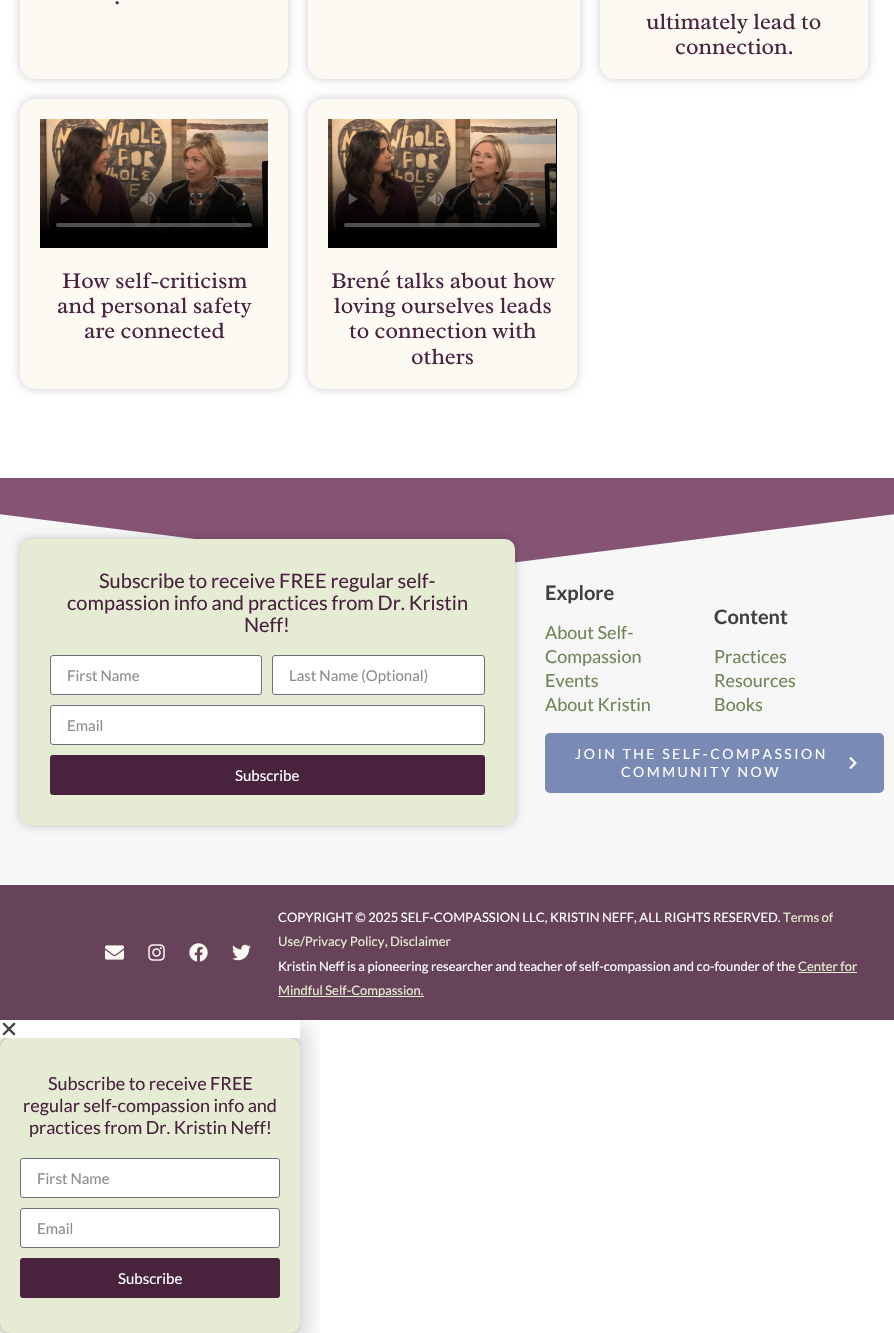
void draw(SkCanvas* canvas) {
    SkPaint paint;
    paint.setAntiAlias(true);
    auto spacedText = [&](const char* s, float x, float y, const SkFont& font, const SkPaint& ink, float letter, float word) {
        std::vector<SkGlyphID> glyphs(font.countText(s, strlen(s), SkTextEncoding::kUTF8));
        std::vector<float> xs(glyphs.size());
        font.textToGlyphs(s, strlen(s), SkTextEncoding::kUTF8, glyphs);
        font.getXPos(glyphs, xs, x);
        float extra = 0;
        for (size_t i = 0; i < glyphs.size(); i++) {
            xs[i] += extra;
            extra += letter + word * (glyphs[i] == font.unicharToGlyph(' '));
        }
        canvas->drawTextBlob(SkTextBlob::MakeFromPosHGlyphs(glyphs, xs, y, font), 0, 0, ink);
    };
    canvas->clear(0xFFFFFFFF);
    paint.setColor(0x33000000);
    paint.setMaskFilter(SkMaskFilter::MakeBlur(kNormal_SkBlurStyle, 5));
    canvas->drawRoundRect(SkRect::MakeXYWH(20, -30, 268, 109), 15, 15, paint);
    paint.setMaskFilter(nullptr);
    paint.setColor(0xFFFDFAF4);
    canvas->drawRoundRect(SkRect::MakeXYWH(20, -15, 268, 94), 15, 15, paint);
    SkFont font1(fontMgr->matchFamilyStyle("Radley", SkFontStyle::Normal()), 23);
    font1.setSubpixel(true);
    paint.setColor(0xFF49223E);
    canvas->drawString(".", 114, 4, font1, paint);
    paint.setColor(0x33000000);
    paint.setMaskFilter(SkMaskFilter::MakeBlur(kNormal_SkBlurStyle, 5));
    canvas->drawRoundRect(SkRect::MakeXYWH(308, -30, 272, 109), 15, 15, paint);
    paint.setMaskFilter(nullptr);
    paint.setColor(0xFFFDFAF4);
    canvas->drawRoundRect(SkRect::MakeXYWH(308, -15, 272, 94), 15, 15, paint);
    paint.setColor(0x33000000);
    paint.setMaskFilter(SkMaskFilter::MakeBlur(kNormal_SkBlurStyle, 5));
    canvas->drawRoundRect(SkRect::MakeXYWH(600, -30, 268, 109), 15, 15, paint);
    paint.setMaskFilter(nullptr);
    paint.setColor(0xFFFDFAF4);
    canvas->drawRoundRect(SkRect::MakeXYWH(600, -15, 268, 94), 15, 15, paint);
    paint.setColor(0xFF49223E);
    canvas->drawString("ultimately lead to", 646, 29, font1, paint);
    canvas->drawString("connection.", 675, 54, font1, paint);
    paint.setColor(0x33000000);
    paint.setMaskFilter(SkMaskFilter::MakeBlur(kNormal_SkBlurStyle, 5));
    canvas->drawRoundRect(SkRect::MakeXYWH(20, 99, 268, 290), 15, 15, paint);
    paint.setMaskFilter(nullptr);
    paint.setColor(0xFFFDFAF4);
    canvas->drawRoundRect(SkRect::MakeXYWH(20, 99, 268, 290), 15, 15, paint);
    paint.setColor(0xFF000000);
    canvas->drawRect(SkRect::MakeXYWH(40, 234, 228, 14), paint);
    canvas->drawImageRect(SkImages::DeferredFromEncodedData(SkData::MakeFromFileName("img1.png")), SkRect::MakeXYWH(40, 119, 228, 115), SkSamplingOptions());
    paint.setColor(0xFF49223E);
    canvas->drawString("How self-criticism", 62, 288, font1, paint);
    canvas->drawString("and personal safety", 57, 313, font1, paint);
    canvas->drawString("are connected", 84, 338, font1, paint);
    paint.setColor(0x33000000);
    paint.setMaskFilter(SkMaskFilter::MakeBlur(kNormal_SkBlurStyle, 5));
    canvas->drawRoundRect(SkRect::MakeXYWH(308, 99, 269, 290), 15, 15, paint);
    paint.setMaskFilter(nullptr);
    paint.setColor(0xFFFDFAF4);
    canvas->drawRoundRect(SkRect::MakeXYWH(308, 99, 269, 290), 15, 15, paint);
    paint.setColor(0xFF000000);
    canvas->drawRect(SkRect::MakeXYWH(328, 119, 229, 129), paint);
    canvas->drawImageRect(SkImages::DeferredFromEncodedData(SkData::MakeFromFileName("img2.png")), SkRect::MakeXYWH(328, 119, 228, 114), SkSamplingOptions());
    paint.setColor(0xFF49223E);
    canvas->drawString("Brené talks about how", 331, 288, font1, paint);
    canvas->drawString("loving ourselves leads", 334, 313, font1, paint);
    canvas->drawString("to connection with", 349, 338, font1, paint);
    canvas->drawString("others", 411, 364, font1, paint);
    paint.setColor(0xFFF7F7F7);
    canvas->drawRect(SkRect::MakeXYWH(0, 514, 894, 371), paint);
    paint.setColor(0xFF865473);
    canvas->drawPath(SkPathBuilder().moveTo(447, 571).lineTo(-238, 484).lineTo(-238, 478).lineTo(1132, 478).lineTo(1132, 484).close().detach(), paint);
    paint.setColor(0x38000000);
    paint.setMaskFilter(SkMaskFilter::MakeBlur(kNormal_SkBlurStyle, 5));
    canvas->drawRoundRect(SkRect::MakeXYWH(20, 539, 495, 286), 10, 10, paint);
    paint.setMaskFilter(nullptr);
    paint.setColor(0xFFE6ECD4);
    canvas->drawRoundRect(SkRect::MakeXYWH(20, 539, 495, 286), 10, 10, paint);
    SkFont font2(fontMgr->matchFamilyStyle("Lato", SkFontStyle::Normal()), 20);
    font2.setSubpixel(true);
    paint.setColor(0xFF49223E);
    canvas->drawString("Subscribe to receive FREE regular self-", 99, 588, font2, paint);
    canvas->drawString("compassion info and practices from Dr. Kristin", 67, 610, font2, paint);
    canvas->drawString("Neff!", 244, 632, font2, paint);
    paint.setColor(0xFFFFFFFF);
    canvas->drawRoundRect(SkRect::MakeXYWH(50.5f, 655.5f, 211, 39), 2.5f, 2.5f, paint);
    paint.setStyle(SkPaint::kStroke_Style);
    paint.setStrokeWidth(1);
    paint.setColor(0xFF69727D);
    canvas->drawRoundRect(SkRect::MakeXYWH(50.5f, 655.5f, 211, 39), 2.5f, 2.5f, paint);
    SkFont font3(fontMgr->matchFamilyStyle("Lato", SkFontStyle::Normal()), 15);
    font3.setSubpixel(true);
    paint.setStyle(SkPaint::kFill_Style);
    paint.setColor(0xFF8C8C8C);
    canvas->drawString("First Name", 67, 681, font3, paint);
    paint.setColor(0xFFFFFFFF);
    canvas->drawRoundRect(SkRect::MakeXYWH(272.5f, 655.5f, 212, 39), 2.5f, 2.5f, paint);
    paint.setStyle(SkPaint::kStroke_Style);
    paint.setColor(0xFF69727D);
    canvas->drawRoundRect(SkRect::MakeXYWH(272.5f, 655.5f, 212, 39), 2.5f, 2.5f, paint);
    paint.setStyle(SkPaint::kFill_Style);
    paint.setColor(0xFF8C8C8C);
    canvas->drawString("Last Name (Optional)", 289, 681, font3, paint);
    paint.setColor(0xFFFFFFFF);
    canvas->drawRoundRect(SkRect::MakeXYWH(50.5f, 705.5f, 434, 39), 2.5f, 2.5f, paint);
    paint.setStyle(SkPaint::kStroke_Style);
    paint.setColor(0xFF69727D);
    canvas->drawRoundRect(SkRect::MakeXYWH(50.5f, 705.5f, 434, 39), 2.5f, 2.5f, paint);
    paint.setStyle(SkPaint::kFill_Style);
    paint.setColor(0xFF8C8C8C);
    canvas->drawString("Email", 67, 731, font3, paint);
    paint.setColor(0xFF49223E);
    canvas->drawRoundRect(SkRect::MakeXYWH(50, 755, 435, 40), 3, 3, paint);
    paint.setColor(0xFFFFFFFF);
    canvas->drawString("Subscribe", 235, 781, font3, paint);
    SkFont font4(fontMgr->matchFamilyStyle("Lato", SkFontStyle::Bold()), 20);
    font4.setSubpixel(true);
    paint.setColor(0xFF404040);
    canvas->drawString("Explore", 545, 600, font4, paint);
    SkFont font5(fontMgr->matchFamilyStyle("Lato", SkFontStyle::Normal()), 18);
    font5.setSubpixel(true);
    paint.setColor(0xFF6F8457);
    canvas->drawString("About Self-", 545, 639, font5, paint);
    canvas->drawString("Compassion", 545, 663, font5, paint);
    canvas->drawString("Events", 545, 687, font5, paint);
    canvas->drawString("About Kristin", 545, 711, font5, paint);
    paint.setColor(0xFF404040);
    canvas->drawString("Content", 714, 624, font4, paint);
    paint.setColor(0xFF6F8457);
    canvas->drawString("Practices", 714, 663, font5, paint);
    canvas->drawString("Resources", 714, 687, font5, paint);
    canvas->drawString("Books", 714, 711, font5, paint);
    paint.setColor(0xFF798AB4);
    canvas->drawRoundRect(SkRect::MakeXYWH(545, 733, 339, 60), 5, 5, paint);
    SkFont font6(fontMgr->matchFamilyStyle("Lato", SkFontStyle::Normal()), 14);
    font6.setSubpixel(true);
    paint.setColor(0xFFFFFFFF);
    spacedText("JOIN THE SELF-COMPASSION", 575, 759, font6, paint, 2.5f, 0);
    spacedText("COMMUNITY NOW", 621, 777, font6, paint, 2.5f, 0);
    canvas->drawImageRect(SkImages::DeferredFromEncodedData(SkData::MakeFromFileName("img3.png")), SkRect::MakeXYWH(849, 757, 8, 12), SkSamplingOptions());
    canvas->save();
    canvas->clipRect(SkRect::MakeXYWH(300, 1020, 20, 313));
    paint.setColor(0x33000000);
    paint.setMaskFilter(SkMaskFilter::MakeBlur(kNormal_SkBlurStyle, 11.5f));
    canvas->drawRect(SkRect::MakeXYWH(-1, 1025, 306, 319), paint);
    paint.setMaskFilter(nullptr);
    canvas->restore();
    paint.setColor(0xFF664359);
    canvas->drawRect(SkRect::MakeXYWH(0, 885, 894, 135), paint);
    canvas->drawImageRect(SkImages::DeferredFromEncodedData(SkData::MakeFromFileName("img4.png")), SkRect::MakeXYWH(105, 945, 19, 15), SkSamplingOptions());
    canvas->drawImageRect(SkImages::DeferredFromEncodedData(SkData::MakeFromFileName("img5.png")), SkRect::MakeXYWH(148, 944, 17, 17), SkSamplingOptions());
    canvas->drawImageRect(SkImages::DeferredFromEncodedData(SkData::MakeFromFileName("img6.png")), SkRect::MakeXYWH(189, 943, 19, 19), SkSamplingOptions());
    canvas->drawImageRect(SkImages::DeferredFromEncodedData(SkData::MakeFromFileName("img7.png")), SkRect::MakeXYWH(232, 944, 19, 17), SkSamplingOptions());
    SkFont font7(fontMgr->matchFamilyStyle("Lato", SkFontStyle::Normal()), 13);
    font7.setSubpixel(true);
    paint.setColor(0xFFFFFFFF);
    canvas->drawString("COPYRIGHT © 2025 SELF-COMPASSION LLC, KRISTIN NEFF, ALL RIGHTS RESERVED.", 278, 922, font7, paint);
    paint.setColor(0xFFE6ECD4);
    canvas->drawString("Terms of", 783, 922, font7, paint);
    canvas->drawString("Use/Privacy Policy", 278, 946, font7, paint);
    paint.setColor(0xFFFFFFFF);
    canvas->drawString(",", 385, 946, font7, paint);
    paint.setColor(0xFFE6ECD4);
    canvas->drawString("Disclaimer", 390, 946, font7, paint);
    paint.setColor(0xFFFFFFFF);
    canvas->drawString("Kristin Neff is a pioneering researcher and teacher of self-compassion and co-founder of the", 278, 971, font7, paint);
    paint.setColor(0xFFE6ECD4);
    canvas->drawString("Center for", 798, 971, font7, paint);
    canvas->drawRect(SkRect::MakeXYWH(798, 972, 59, 1), paint);
    canvas->drawRect(SkRect::MakeXYWH(278, 996, 146, 1), paint);
    canvas->drawString("Mindful Self-Compassion.", 278, 995, font7, paint);
    canvas->drawImageRect(SkImages::DeferredFromEncodedData(SkData::MakeFromFileName("img8.png")), SkRect::MakeXYWH(2, 1022, 14, 14), SkSamplingOptions());
    canvas->save();
    canvas->clipRect(SkRect::MakeXYWH(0, 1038, 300, 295));
    paint.setColor(0x80000000);
    paint.setMaskFilter(SkMaskFilter::MakeBlur(kNormal_SkBlurStyle, 5));
    canvas->drawRoundRect(SkRect::MakeXYWH(0, 1038, 300, 295), 10, 10, paint);
    paint.setMaskFilter(nullptr);
    canvas->restore();
    paint.setColor(0xFFE6ECD4);
    canvas->drawRoundRect(SkRect::MakeXYWH(0, 1038, 300, 295), 10, 10, paint);
    paint.setColor(0xFF49223E);
    canvas->drawString("Subscribe to receive FREE", 48, 1090, font5, paint);
    canvas->drawString("regular self-compassion info and", 23, 1112, font5, paint);
    canvas->drawString("practices from Dr. Kristin Neff!", 29, 1134, font5, paint);
    paint.setColor(0xFFFFFFFF);
    canvas->drawRoundRect(SkRect::MakeXYWH(20.5f, 1158.5f, 259, 39), 2.5f, 2.5f, paint);
    paint.setStyle(SkPaint::kStroke_Style);
    paint.setColor(0xFF69727D);
    canvas->drawRoundRect(SkRect::MakeXYWH(20.5f, 1158.5f, 259, 39), 2.5f, 2.5f, paint);
    paint.setStyle(SkPaint::kFill_Style);
    paint.setColor(0xFF8C8C8C);
    canvas->drawString("First Name", 37, 1184, font3, paint);
    paint.setColor(0xFFFFFFFF);
    canvas->drawRoundRect(SkRect::MakeXYWH(20.5f, 1208.5f, 259, 39), 2.5f, 2.5f, paint);
    paint.setStyle(SkPaint::kStroke_Style);
    paint.setColor(0xFF69727D);
    canvas->drawRoundRect(SkRect::MakeXYWH(20.5f, 1208.5f, 259, 39), 2.5f, 2.5f, paint);
    paint.setStyle(SkPaint::kFill_Style);
    paint.setColor(0xFF8C8C8C);
    canvas->drawString("Email", 37, 1234, font3, paint);
    paint.setColor(0xFF49223E);
    canvas->drawRoundRect(SkRect::MakeXYWH(20, 1258, 260, 40), 3, 3, paint);
    paint.setColor(0xFFFFFFFF);
    canvas->drawString("Subscribe", 118, 1284, font3, paint);
}
